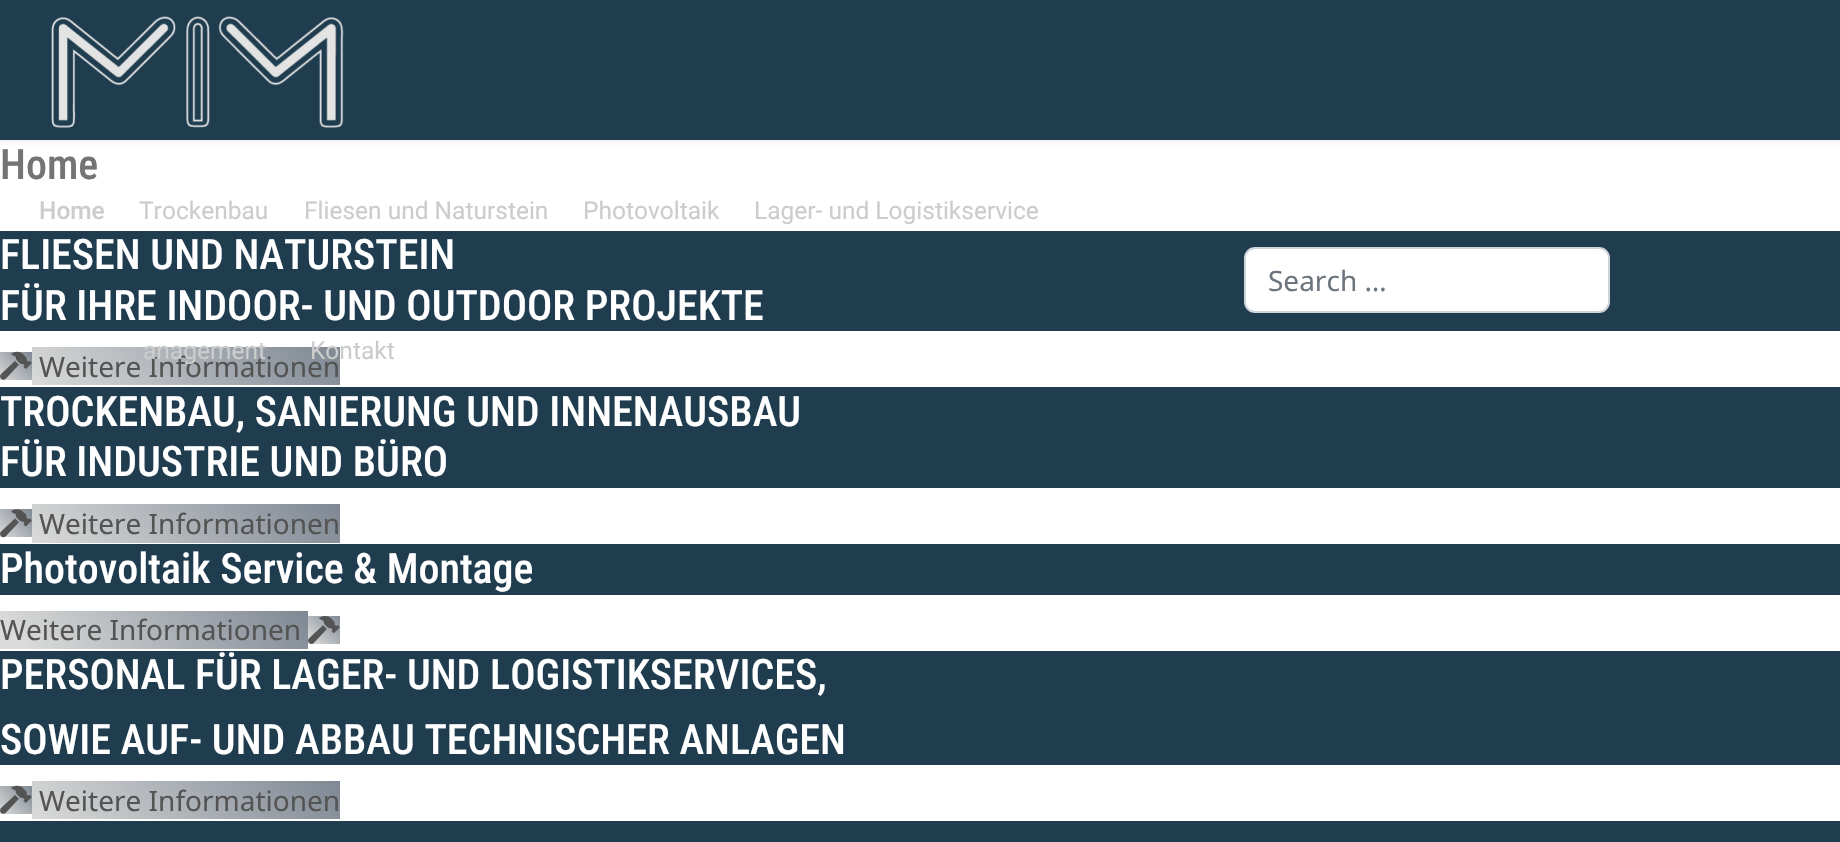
void draw(SkCanvas* canvas) {
    SkPaint paint;
    paint.setAntiAlias(true);
    canvas->clear(0xFFFFFFFF);
    SkFont font1(fontMgr->matchFamilyStyle("Roboto Condensed", SkFontStyle(500, SkFontStyle::kNormal_Width, SkFontStyle::kUpright_Slant)), 42);
    font1.setSubpixel(true);
    paint.setColor(0xFF747573);
    canvas->drawString("Home", 0, 179, font1, paint);
    paint.setColor(0xFF1F3D4F);
    canvas->drawRect(SkRect::MakeXYWH(0, 231, 1840, 100), paint);
    paint.setColor(0xFFFFFFFF);
    canvas->drawString("FLIESEN UND NATURSTEIN", 0, 269, font1, paint);
    canvas->drawString("FÜR IHRE INDOOR- UND OUTDOOR PROJEKTE", 0, 320, font1, paint);
    {
        const SkColor colors[] = {0xFFDADBDA, 0xFF7E8793};
        const float stops[] = {0, 1};
        const SkPoint ends[] = {{0.9f, 381}, {31, 351}};
        paint.setShader(SkGradientShader::MakeLinear(ends, colors, stops, 2, SkTileMode::kClamp));
        paint.setAlpha(255);
    }
    canvas->drawRect(SkRect::MakeXYWH(0, 352, 32, 28), paint);
    {
        const SkColor colors[] = {0xFFDADBDA, 0xFF7E8793};
        const float stops[] = {0, 1};
        const SkPoint ends[] = {{99, 452}, {272, 279}};
        paint.setShader(SkGradientShader::MakeLinear(ends, colors, stops, 2, SkTileMode::kClamp));
        paint.setAlpha(255);
    }
    canvas->drawRect(SkRect::MakeXYWH(32, 347, 308, 38), paint);
    canvas->drawImageRect(SkImages::DeferredFromEncodedData(SkData::MakeFromFileName("img1.png")), SkRect::MakeXYWH(0, 351, 32, 29), SkSamplingOptions());
    SkFont font2(fontMgr->matchFamilyStyle("Noto Sans", SkFontStyle::Normal()), 28);
    font2.setSubpixel(true);
    paint.setShader(nullptr);
    paint.setColor(0xFF545454);
    canvas->drawString("Weitere Informationen", 39, 377, font2, paint);
    paint.setColor(0xFF1F3D4F);
    canvas->drawRect(SkRect::MakeXYWH(0, 387, 1840, 101), paint);
    paint.setColor(0xFFFFFFFF);
    canvas->drawString("TROCKENBAU, SANIERUNG UND INNENAUSBAU", 0, 426, font1, paint);
    canvas->drawString("FÜR INDUSTRIE UND BÜRO", 0, 476, font1, paint);
    {
        const SkColor colors[] = {0xFFDADBDA, 0xFF7E8793};
        const float stops[] = {0, 1};
        const SkPoint ends[] = {{0.9f, 538}, {31, 508}};
        paint.setShader(SkGradientShader::MakeLinear(ends, colors, stops, 2, SkTileMode::kClamp));
        paint.setAlpha(255);
    }
    canvas->drawRect(SkRect::MakeXYWH(0, 509, 32, 28), paint);
    {
        const SkColor colors[] = {0xFFDADBDA, 0xFF7E8793};
        const float stops[] = {0, 1};
        const SkPoint ends[] = {{99, 610}, {272, 437}};
        paint.setShader(SkGradientShader::MakeLinear(ends, colors, stops, 2, SkTileMode::kClamp));
        paint.setAlpha(255);
    }
    canvas->drawRect(SkRect::MakeXYWH(32, 504, 308, 39), paint);
    canvas->drawImageRect(SkImages::DeferredFromEncodedData(SkData::MakeFromFileName("img2.png")), SkRect::MakeXYWH(0, 509, 32, 29), SkSamplingOptions());
    paint.setShader(nullptr);
    paint.setColor(0xFF545454);
    canvas->drawString("Weitere Informationen", 39, 534, font2, paint);
    paint.setColor(0xFF1F3D4F);
    canvas->drawRect(SkRect::MakeXYWH(0, 544, 1840, 51), paint);
    paint.setColor(0xFFFFFFFF);
    canvas->drawString("Photovoltaik Service & Montage", 0, 583, font1, paint);
    {
        const SkColor colors[] = {0xFFDADBDA, 0xFF7E8793};
        const float stops[] = {0.08f, 1};
        const SkPoint ends[] = {{67, 717}, {241, 543}};
        paint.setShader(SkGradientShader::MakeLinear(ends, colors, stops, 2, SkTileMode::kClamp));
        paint.setAlpha(255);
    }
    canvas->drawRect(SkRect::MakeXYWH(0, 611, 308, 38), paint);
    {
        const SkColor colors[] = {0xFFDADBDA, 0xFF7E8793};
        const float stops[] = {0.08f, 1};
        const SkPoint ends[] = {{309, 645}, {339, 615}};
        paint.setShader(SkGradientShader::MakeLinear(ends, colors, stops, 2, SkTileMode::kClamp));
        paint.setAlpha(255);
    }
    canvas->drawRect(SkRect::MakeXYWH(308, 616, 32, 28), paint);
    paint.setShader(nullptr);
    paint.setColor(0xFF545454);
    canvas->drawString("Weitere Informationen", 0, 640, font2, paint);
    canvas->drawImageRect(SkImages::DeferredFromEncodedData(SkData::MakeFromFileName("img3.png")), SkRect::MakeXYWH(308, 616, 32, 28), SkSamplingOptions());
    paint.setColor(0xFF1F3D4F);
    canvas->drawRect(SkRect::MakeXYWH(0, 651, 1840, 114), paint);
    paint.setColor(0xFFFFFFFF);
    canvas->drawString("PERSONAL FÜR LAGER- UND LOGISTIKSERVICES,", 0, 689, font1, paint);
    canvas->drawString("SOWIE AUF- UND ABBAU TECHNISCHER ANLAGEN", 0, 754, font1, paint);
    {
        const SkColor colors[] = {0xFFDADBDA, 0xFF7E8793};
        const float stops[] = {0, 1};
        const SkPoint ends[] = {{0.9f, 815}, {31, 785}};
        paint.setShader(SkGradientShader::MakeLinear(ends, colors, stops, 2, SkTileMode::kClamp));
        paint.setAlpha(255);
    }
    canvas->drawRect(SkRect::MakeXYWH(0, 786, 32, 28), paint);
    {
        const SkColor colors[] = {0xFFDADBDA, 0xFF7E8793};
        const float stops[] = {0, 1};
        const SkPoint ends[] = {{99, 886}, {272, 713}};
        paint.setShader(SkGradientShader::MakeLinear(ends, colors, stops, 2, SkTileMode::kClamp));
        paint.setAlpha(255);
    }
    canvas->drawRect(SkRect::MakeXYWH(32, 781, 308, 38), paint);
    canvas->drawImageRect(SkImages::DeferredFromEncodedData(SkData::MakeFromFileName("img1.png")), SkRect::MakeXYWH(0, 785, 32, 29), SkSamplingOptions());
    paint.setShader(nullptr);
    paint.setColor(0xFF545454);
    canvas->drawString("Weitere Informationen", 39, 811, font2, paint);
    paint.setColor(0xFF1F3D4F);
    canvas->drawRect(SkRect::MakeXYWH(0, 821, 1840, 21), paint);
    paint.setColor(0x1A000000);
    paint.setMaskFilter(SkMaskFilter::MakeBlur(kNormal_SkBlurStyle, 3.5f));
    canvas->drawRect(SkRect::MakeXYWH(0, 0, 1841, 140), paint);
    paint.setMaskFilter(nullptr);
    paint.setColor(0xFF1F3D4F);
    canvas->drawRect(SkRect::MakeXYWH(0, 0, 1840, 140), paint);
    canvas->drawImageRect(SkImages::DeferredFromEncodedData(SkData::MakeFromFileName("img4.png")), SkRect::MakeXYWH(51, 16, 293, 112), SkSamplingOptions());
    SkFont font3(fontMgr->matchFamilyStyle("Roboto", SkFontStyle(500, SkFontStyle::kNormal_Width, SkFontStyle::kUpright_Slant)), 24.5f);
    font3.setSubpixel(true);
    paint.setColor(0xFFCCCCCC);
    canvas->drawString("Home", 39, 219, font3, paint);
    SkFont font4(fontMgr->matchFamilyStyle("Roboto", SkFontStyle::Normal()), 24.5f);
    font4.setSubpixel(true);
    canvas->drawString("Trockenbau", 139, 219, font4, paint);
    canvas->drawString("Fliesen und Naturstein", 304, 219, font4, paint);
    canvas->drawString("Photovoltaik", 583, 219, font4, paint);
    canvas->drawString("Lager- und Logistikservice", 754, 219, font4, paint);
    canvas->drawString("anagement", 143, 359, font4, paint);
    canvas->drawString("Kontakt", 310, 359, font4, paint);
    paint.setColor(0xFFFFFFFF);
    canvas->drawRoundRect(SkRect::MakeXYWH(1245, 248, 364, 64), 10, 10, paint);
    paint.setStyle(SkPaint::kStroke_Style);
    paint.setStrokeWidth(2);
    paint.setColor(0xFFCED4DA);
    canvas->drawRoundRect(SkRect::MakeXYWH(1245, 248, 364, 64), 10, 10, paint);
    paint.setStyle(SkPaint::kFill_Style);
    paint.setColor(0xFF6C757D);
    canvas->drawString("Search …", 1268, 291, font2, paint);
}
